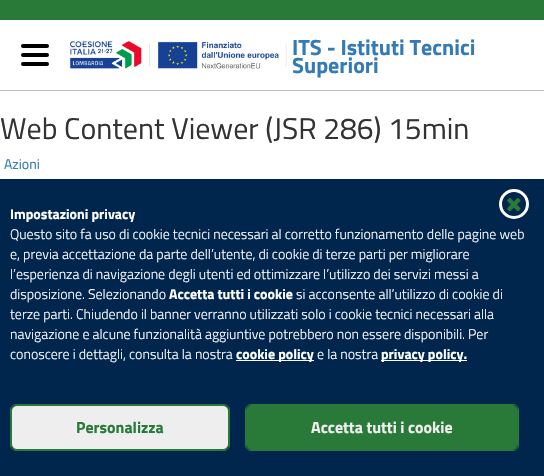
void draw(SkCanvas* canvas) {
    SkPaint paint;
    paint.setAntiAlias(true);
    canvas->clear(0xFFFFFFFF);
    paint.setColor(0xFF297A38);
    canvas->drawRect(SkRect::MakeXYWH(0, 0, 544, 20), paint);
    paint.setColor(0xFFBFBFBF);
    canvas->drawRect(SkRect::MakeXYWH(0, 90, 544, 1), paint);
    paint.setColor(0xFF000000);
    canvas->drawRoundRect(SkRect::MakeXYWH(21, 44, 28, 4), 2, 2, paint);
    canvas->drawRoundRect(SkRect::MakeXYWH(21, 53, 28, 4), 2, 2, paint);
    canvas->drawRoundRect(SkRect::MakeXYWH(21, 62, 28, 4), 2, 2, paint);
    canvas->drawImageRect(SkImages::DeferredFromEncodedData(SkData::MakeFromFileName("img1.png")), SkRect::MakeXYWH(70, 41, 217, 28), SkSamplingOptions());
    SkFont font1(fontMgr->matchFamilyStyle("Titillium Web", SkFontStyle::Bold()), 22);
    font1.setSubpixel(true);
    paint.setColor(0xFF337AB7);
    canvas->drawString("ITS - Istituti Tecnici", 292, 55, font1, paint);
    canvas->drawString("Superiori", 292, 73, font1, paint);
    SkFont font2(fontMgr->matchFamilyStyle("Titillium Web", SkFontStyle::Normal()), 30);
    font2.setSubpixel(true);
    paint.setColor(0xFF333333);
    canvas->drawString("Web Content Viewer (JSR 286) 15min", 0, 139, font2, paint);
    SkFont font3(fontMgr->matchFamilyStyle("Titillium Web", SkFontStyle::Normal()), 14);
    font3.setSubpixel(true);
    paint.setColor(0xFF337AB7);
    canvas->drawString("Azioni", 4, 169, font3, paint);
    paint.setColor(0xFF00264D);
    canvas->drawRect(SkRect::MakeXYWH(0, 179, 544, 297), paint);
    paint.setStyle(SkPaint::kStroke_Style);
    paint.setStrokeWidth(3);
    paint.setColor(0xFFFFFFFF);
    canvas->drawCircle(514, 204, 13.5f, paint);
    canvas->drawImageRect(SkImages::DeferredFromEncodedData(SkData::MakeFromFileName("img2.png")), SkRect::MakeXYWH(507, 198, 14, 14), SkSamplingOptions());
    SkFont font4(fontMgr->matchFamilyStyle("Titillium Web", SkFontStyle::Bold()), 14);
    font4.setSubpixel(true);
    paint.setStyle(SkPaint::kFill_Style);
    canvas->drawString("Impostazioni privacy", 10, 219, font4, paint);
    SkFont font5(fontMgr->matchFamilyStyle("Titillium Web", SkFontStyle(300, SkFontStyle::kNormal_Width, SkFontStyle::kUpright_Slant)), 14);
    font5.setSubpixel(true);
    canvas->drawString("Questo sito fa uso di cookie tecnici necessari al corretto funzionamento delle pagine web", 10, 239, font5, paint);
    canvas->drawString("e, previa accettazione da parte dell’utente, di cookie di terze parti per migliorare", 10, 259, font5, paint);
    canvas->drawString("l’esperienza di navigazione degli utenti ed ottimizzare l’utilizzo dei servizi messi a", 10, 279, font5, paint);
    canvas->drawString("disposizione. Selezionando", 10, 299, font5, paint);
    canvas->drawString("Accetta tutti i cookie", 169, 299, font4, paint);
    canvas->drawString("si acconsente all’utilizzo di cookie di", 296, 299, font5, paint);
    canvas->drawString("terze parti. Chiudendo il banner verranno utilizzati solo i cookie tecnici necessari alla", 10, 319, font5, paint);
    canvas->drawString("navigazione e alcune funzionalità aggiuntive potrebbero non essere disponibili. Per", 10, 339, font5, paint);
    canvas->drawString("conoscere i dettagli, consulta la nostra", 10, 359, font5, paint);
    canvas->drawRect(SkRect::MakeXYWH(236, 360, 78, 1), paint);
    canvas->drawString("cookie policy", 236, 359, font4, paint);
    canvas->drawString("e la nostra", 317, 359, font5, paint);
    canvas->drawRect(SkRect::MakeXYWH(381, 360, 86, 1), paint);
    canvas->drawString("privacy policy.", 381, 359, font4, paint);
    paint.setStyle(SkPaint::kStroke_Style);
    paint.setStrokeWidth(1);
    paint.setColor(0xFF297A38);
    canvas->drawRoundRect(SkRect::MakeXYWH(10.5f, 404.5f, 219, 46), 5.5f, 5.5f, paint);
    paint.setStyle(SkPaint::kFill_Style);
    paint.setColor(0xFFEEEEEE);
    canvas->drawRoundRect(SkRect::MakeXYWH(11.5f, 405.5f, 217, 44), 5.5f, 5.5f, paint);
    paint.setStyle(SkPaint::kStroke_Style);
    paint.setColor(0xFF297A38);
    canvas->drawRoundRect(SkRect::MakeXYWH(11.5f, 405.5f, 217, 44), 5.5f, 5.5f, paint);
    SkFont font6(fontMgr->matchFamilyStyle("Titillium Web", SkFontStyle::Bold()), 16);
    font6.setSubpixel(true);
    paint.setStyle(SkPaint::kFill_Style);
    canvas->drawString("Personalizza", 76, 433, font6, paint);
    paint.setStyle(SkPaint::kStroke_Style);
    canvas->drawRoundRect(SkRect::MakeXYWH(245.5f, 404.5f, 273, 46), 5.5f, 5.5f, paint);
    paint.setStyle(SkPaint::kFill_Style);
    canvas->drawRoundRect(SkRect::MakeXYWH(246.5f, 405.5f, 271, 44), 5.5f, 5.5f, paint);
    paint.setStyle(SkPaint::kStroke_Style);
    canvas->drawRoundRect(SkRect::MakeXYWH(246.5f, 405.5f, 271, 44), 5.5f, 5.5f, paint);
    paint.setStyle(SkPaint::kFill_Style);
    paint.setColor(0xFFEEEEEE);
    canvas->drawString("Accetta tutti i cookie", 311, 433, font6, paint);
}
